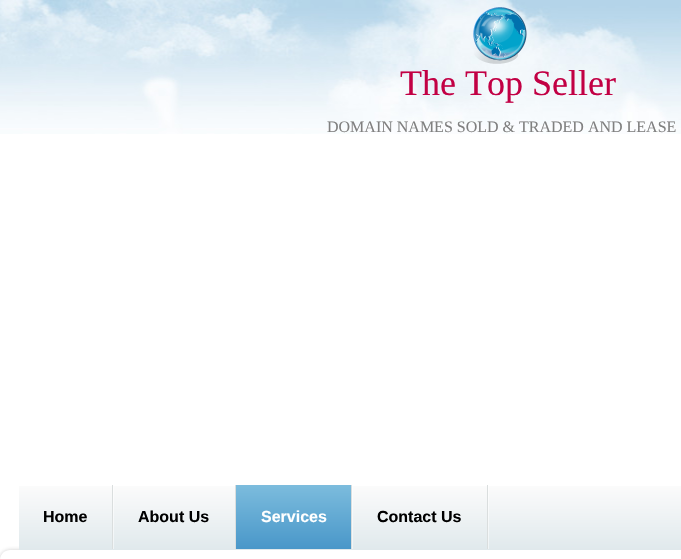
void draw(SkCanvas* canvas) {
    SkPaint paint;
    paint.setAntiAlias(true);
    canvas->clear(0xFFFFFFFF);
    canvas->drawImageRect(SkImages::DeferredFromEncodedData(SkData::MakeFromFileName("img1.png")), SkRect::MakeXYWH(0, 0, 681, 134), SkSamplingOptions());
    paint.setColor(0x40323232);
    paint.setMaskFilter(SkMaskFilter::MakeBlur(kNormal_SkBlurStyle, 2));
    canvas->drawRoundRect(SkRect::MakeXYWH(0, 550, 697, 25), 10, 10, paint);
    paint.setMaskFilter(nullptr);
    paint.setColor(0xFFFFFFFF);
    canvas->drawPath(SkPathBuilder().moveTo(10, 550).lineTo(681, 550).lineTo(681, 559).lineTo(0, 559).lineTo(0, 560).cubicTo(0, 554.5f, 4.5f, 550, 10, 550).close().detach(), paint);
    canvas->drawImageRect(SkImages::DeferredFromEncodedData(SkData::MakeFromFileName("img2.png")), SkRect::MakeXYWH(473, 7, 54, 57), SkSamplingOptions());
    SkFont font1(fontMgr->matchFamilyStyle("Liberation Serif", SkFontStyle::Normal()), 36);
    font1.setSubpixel(true);
    paint.setColor(0xFFC20044);
    canvas->drawString("The Top Seller", 400, 95, font1, paint);
    SkFont font2(fontMgr->matchFamilyStyle("Liberation Serif", SkFontStyle::Normal()), 16);
    font2.setSubpixel(true);
    paint.setColor(0xFF808080);
    canvas->drawString("DOMAIN NAMES SOLD & TRADED AND LEASE", 327, 132, font2, paint);
    {
        const SkColor colors[] = {0xFFFBFBFB, 0xFFE0E9EC};
        const float stops[] = {0, 1};
        const SkPoint ends[] = {{511, 486}, {511, 550}};
        paint.setShader(SkGradientShader::MakeLinear(ends, colors, stops, 2, SkTileMode::kClamp));
        paint.setAlpha(255);
    }
    canvas->drawRect(SkRect::MakeXYWH(19, 486, 662, 64), paint);
    paint.setShader(nullptr);
    paint.setColor(0x80FFFFFF);
    canvas->drawRect(SkRect::MakeXYWH(113, 485, 1, 64), paint);
    paint.setColor(0xFFDADEDE);
    canvas->drawRect(SkRect::MakeXYWH(112, 485, 1, 64), paint);
    SkFont font3(fontMgr->matchFamilyStyle("Liberation Sans", SkFontStyle::Bold()), 16);
    font3.setSubpixel(true);
    paint.setColor(0xFF000000);
    canvas->drawString("Home", 43, 522, font3, paint);
    paint.setColor(0xFFDADEDE);
    canvas->drawRect(SkRect::MakeXYWH(235, 485, 1, 64), paint);
    paint.setColor(0xFF000000);
    canvas->drawString("About Us", 138, 522, font3, paint);
    paint.setColor(0x80FFFFFF);
    canvas->drawRect(SkRect::MakeXYWH(352, 485, 1, 64), paint);
    {
        const SkColor colors[] = {0xFF7CBCDD, 0xFF4997C9};
        const float stops[] = {0, 1};
        const SkPoint ends[] = {{294, 485}, {294, 549}};
        paint.setShader(SkGradientShader::MakeLinear(ends, colors, stops, 2, SkTileMode::kClamp));
        paint.setAlpha(255);
    }
    canvas->drawRect(SkRect::MakeXYWH(236, 485, 115, 64), paint);
    paint.setShader(nullptr);
    paint.setColor(0xFFDADEDE);
    canvas->drawRect(SkRect::MakeXYWH(351, 485, 1, 64), paint);
    paint.setColor(0xFFFFFFFF);
    canvas->drawString("Services", 261, 522, font3, paint);
    paint.setColor(0x80FFFFFF);
    canvas->drawRect(SkRect::MakeXYWH(488, 485, 1, 64), paint);
    paint.setColor(0xFFDADEDE);
    canvas->drawRect(SkRect::MakeXYWH(487, 485, 1, 64), paint);
    paint.setColor(0xFF000000);
    canvas->drawString("Contact Us", 377, 522, font3, paint);
}
